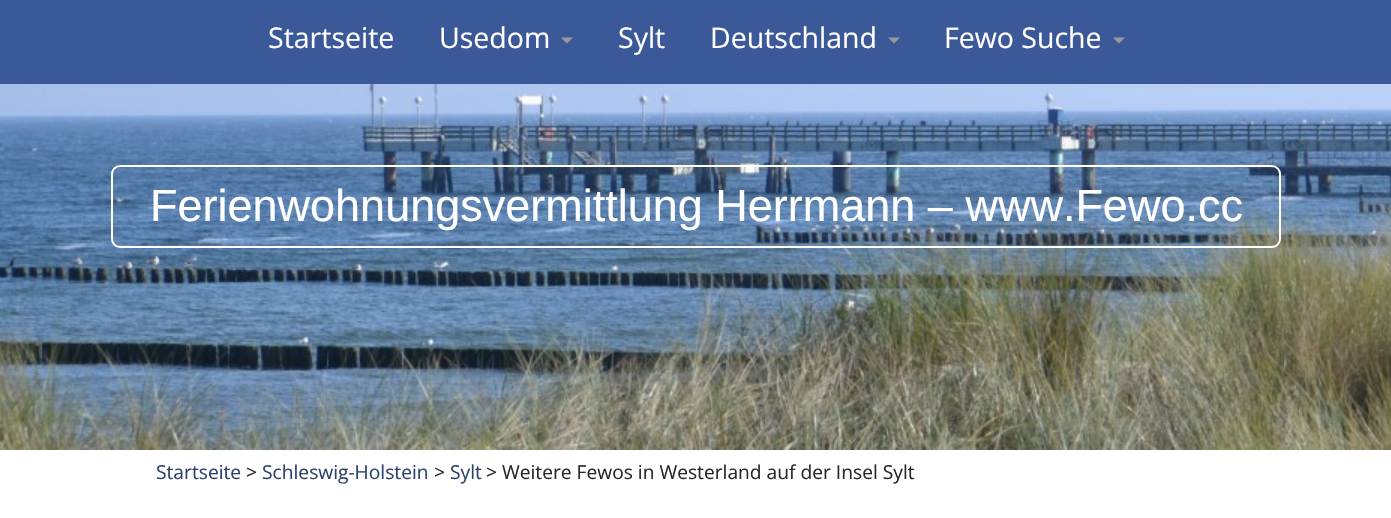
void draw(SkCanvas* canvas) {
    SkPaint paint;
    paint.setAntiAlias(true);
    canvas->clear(0xFFFFFFFF);
    paint.setColor(0xFF3B5999);
    canvas->drawRect(SkRect::MakeXYWH(0, 0, 1391, 84), paint);
    SkFont font1(fontMgr->matchFamilyStyle("Open Sans", SkFontStyle::Normal()), 28.5f);
    font1.setSubpixel(true);
    paint.setColor(0xFFFFFFFF);
    canvas->drawString("Startseite", 268, 48, font1, paint);
    canvas->drawString("Usedom", 439, 48, font1, paint);
    paint.setColor(0xFF999999);
    canvas->drawPath(SkPathBuilder().moveTo(561, 37.5f).lineTo(573, 37.5f).lineTo(567, 43.5f).close().detach(), paint);
    paint.setColor(0xFFFFFFFF);
    canvas->drawString("Sylt", 618, 48, font1, paint);
    canvas->drawString("Deutschland", 710, 48, font1, paint);
    paint.setColor(0xFF999999);
    canvas->drawPath(SkPathBuilder().moveTo(888, 37.5f).lineTo(900, 37.5f).lineTo(894, 43.5f).close().detach(), paint);
    paint.setColor(0xFFFFFFFF);
    canvas->drawString("Fewo Suche", 944, 48, font1, paint);
    paint.setColor(0xFF999999);
    canvas->drawPath(SkPathBuilder().moveTo(1113, 37.5f).lineTo(1125, 37.5f).lineTo(1119, 43.5f).close().detach(), paint);
    canvas->drawImageRect(SkImages::DeferredFromEncodedData(SkData::MakeFromFileName("img1.png")), SkRect::MakeXYWH(0, 84, 1391, 366), SkSamplingOptions());
    paint.setStyle(SkPaint::kStroke_Style);
    paint.setStrokeWidth(2);
    paint.setColor(0xFFFFFFFF);
    canvas->drawRoundRect(SkRect::MakeXYWH(112, 166, 1168, 81), 8, 8, paint);
    SkFont font2(fontMgr->matchFamilyStyle("Liberation Sans", SkFontStyle::Normal()), 45);
    font2.setSubpixel(true);
    paint.setStyle(SkPaint::kFill_Style);
    canvas->drawString("Ferienwohnungsvermittlung Herrmann – www.Fewo.cc", 150, 221, font2, paint);
    SkFont font3(fontMgr->matchFamilyStyle("Open Sans", SkFontStyle::Normal()), 19.2f);
    font3.setSubpixel(true);
    paint.setColor(0xFF2B406C);
    canvas->drawString("Startseite", 156, 479, font3, paint);
    paint.setColor(0xFF282828);
    canvas->drawString(">", 246, 479, font3, paint);
    paint.setColor(0xFF2B406C);
    canvas->drawString("Schleswig-Holstein", 262, 479, font3, paint);
    paint.setColor(0xFF282828);
    canvas->drawString(">", 434, 479, font3, paint);
    paint.setColor(0xFF2B406C);
    canvas->drawString("Sylt", 450, 479, font3, paint);
    paint.setColor(0xFF282828);
    canvas->drawString("> Weitere Fewos in Westerland auf der Insel Sylt", 486, 479, font3, paint);
}
